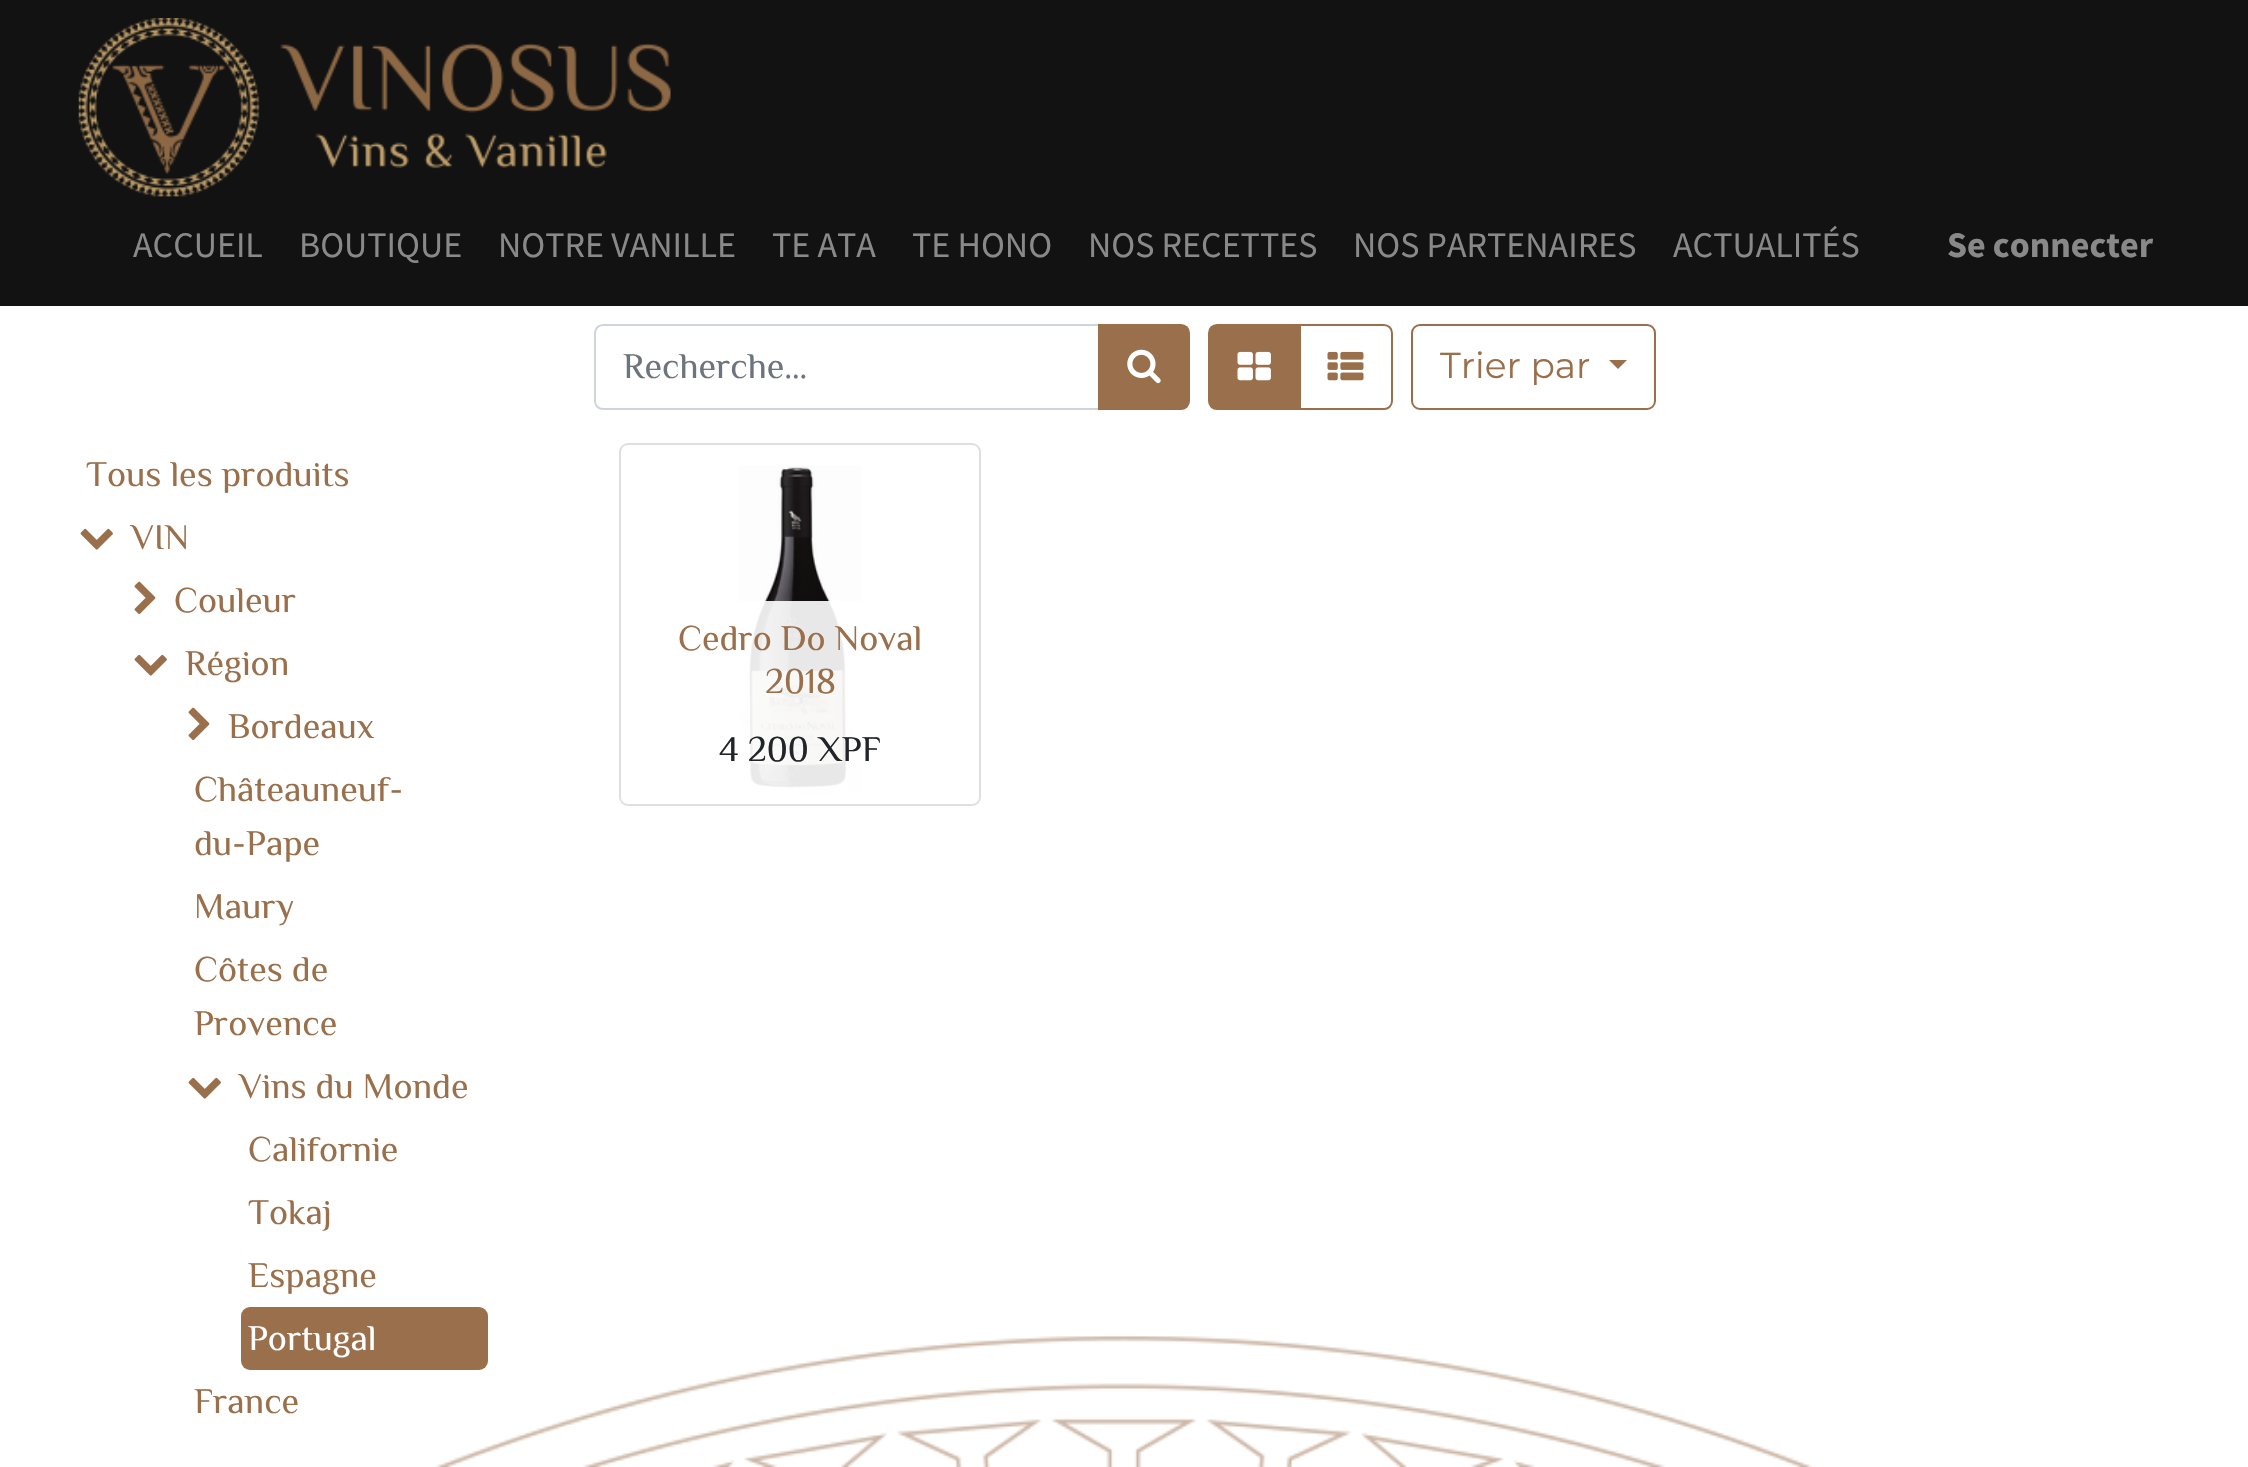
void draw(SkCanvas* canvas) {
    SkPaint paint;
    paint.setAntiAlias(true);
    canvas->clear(0xFFFFFFFF);
    canvas->drawImageRect(SkImages::DeferredFromEncodedData(SkData::MakeFromFileName("img1.png")), SkRect::MakeXYWH(436, 1336, 1376, 131), SkSamplingOptions());
    paint.setColor(0xFF121212);
    canvas->drawRect(SkRect::MakeXYWH(0, 0, 2248, 306), paint);
    canvas->drawImageRect(SkImages::DeferredFromEncodedData(SkData::MakeFromFileName("img2.png")), SkRect::MakeXYWH(78, 18, 593, 179), SkSamplingOptions());
    SkFont font1(fontMgr->matchFamilyStyle("Source Sans Pro", SkFontStyle::Normal()), 36);
    font1.setSubpixel(true);
    paint.setColor(0xFF898989);
    canvas->drawString("ACCUEIL", 133, 257, font1, paint);
    canvas->drawString("BOUTIQUE", 299, 257, font1, paint);
    canvas->drawString("NOTRE VANILLE", 498, 257, font1, paint);
    canvas->drawString("TE ATA", 772, 257, font1, paint);
    canvas->drawString("TE HONO", 912, 257, font1, paint);
    canvas->drawString("NOS RECETTES", 1088, 257, font1, paint);
    canvas->drawString("NOS PARTENAIRES", 1353, 257, font1, paint);
    canvas->drawString("ACTUALITÉS", 1673, 257, font1, paint);
    SkFont font2(fontMgr->matchFamilyStyle("Source Sans Pro", SkFontStyle::Bold()), 36);
    font2.setSubpixel(true);
    canvas->drawString("Se connecter", 1947, 257, font2, paint);
    paint.setStyle(SkPaint::kStroke_Style);
    paint.setStrokeWidth(2);
    paint.setColor(0xFFCED4DA);
    canvas->drawPath(SkPathBuilder().moveTo(603, 325).lineTo(1099, 325).lineTo(1099, 409).lineTo(603, 409).cubicTo(598.5f, 409, 595, 405.5f, 595, 401).lineTo(595, 333).cubicTo(595, 328.5f, 598.5f, 325, 603, 325).close().detach(), paint);
    SkFont font3(fontMgr->matchFamilyStyle("Philosopher", SkFontStyle::Normal()), 36);
    font3.setSubpixel(true);
    paint.setStyle(SkPaint::kFill_Style);
    paint.setColor(0xFF6C757D);
    canvas->drawString("Recherche…", 623, 378, font3, paint);
    paint.setColor(0xFF9A704C);
    canvas->drawPath(SkPathBuilder().moveTo(1099, 325).lineTo(1181, 325).cubicTo(1185.5f, 325, 1189, 328.5f, 1189, 333).lineTo(1189, 401).cubicTo(1189, 405.5f, 1185.5f, 409, 1181, 409).lineTo(1099, 409).close().detach(), paint);
    paint.setStyle(SkPaint::kStroke_Style);
    canvas->drawPath(SkPathBuilder().moveTo(1099, 325).lineTo(1181, 325).cubicTo(1185.5f, 325, 1189, 328.5f, 1189, 333).lineTo(1189, 401).cubicTo(1189, 405.5f, 1185.5f, 409, 1181, 409).lineTo(1099, 409).close().detach(), paint);
    canvas->drawImageRect(SkImages::DeferredFromEncodedData(SkData::MakeFromFileName("img3.png")), SkRect::MakeXYWH(1127, 349, 34, 35), SkSamplingOptions());
    canvas->drawPath(SkPathBuilder().moveTo(1299, 325).lineTo(1384, 325).cubicTo(1388.5f, 325, 1392, 328.5f, 1392, 333).lineTo(1392, 401).cubicTo(1392, 405.5f, 1388.5f, 409, 1384, 409).lineTo(1299, 409).close().detach(), paint);
    paint.setStyle(SkPaint::kFill_Style);
    canvas->drawPath(SkPathBuilder().moveTo(1217, 325).lineTo(1300, 325).lineTo(1300, 409).lineTo(1217, 409).cubicTo(1212.5f, 409, 1209, 405.5f, 1209, 401).lineTo(1209, 333).cubicTo(1209, 328.5f, 1212.5f, 325, 1217, 325).close().detach(), paint);
    paint.setStyle(SkPaint::kStroke_Style);
    canvas->drawPath(SkPathBuilder().moveTo(1217, 325).lineTo(1300, 325).lineTo(1300, 409).lineTo(1217, 409).cubicTo(1212.5f, 409, 1209, 405.5f, 1209, 401).lineTo(1209, 333).cubicTo(1209, 328.5f, 1212.5f, 325, 1217, 325).close().detach(), paint);
    canvas->drawImageRect(SkImages::DeferredFromEncodedData(SkData::MakeFromFileName("img4.png")), SkRect::MakeXYWH(1237, 351, 34, 30), SkSamplingOptions());
    canvas->drawImageRect(SkImages::DeferredFromEncodedData(SkData::MakeFromFileName("img5.png")), SkRect::MakeXYWH(1327, 351, 37, 30), SkSamplingOptions());
    canvas->drawRoundRect(SkRect::MakeXYWH(1412, 325, 243, 84), 8, 8, paint);
    SkFont font4(fontMgr->matchFamilyStyle("Montserrat", SkFontStyle::Normal()), 36);
    font4.setSubpixel(true);
    paint.setStyle(SkPaint::kFill_Style);
    canvas->drawString("Trier par", 1440, 378, font4, paint);
    canvas->drawPath(SkPathBuilder().moveTo(1609, 360).lineTo(1627, 360).lineTo(1618, 369).close().detach(), paint);
    canvas->drawString("Tous les produits", 86, 486, font3, paint);
    canvas->drawImageRect(SkImages::DeferredFromEncodedData(SkData::MakeFromFileName("img6.png")), SkRect::MakeXYWH(80, 528, 33, 22), SkSamplingOptions());
    canvas->drawString("VIN", 131, 549, font3, paint);
    canvas->drawImageRect(SkImages::DeferredFromEncodedData(SkData::MakeFromFileName("img7.png")), SkRect::MakeXYWH(134, 581, 22, 33), SkSamplingOptions());
    canvas->drawString("Couleur", 174, 612, font3, paint);
    canvas->drawImageRect(SkImages::DeferredFromEncodedData(SkData::MakeFromFileName("img6.png")), SkRect::MakeXYWH(134, 654, 33, 22), SkSamplingOptions());
    canvas->drawString("Région", 185, 675, font3, paint);
    canvas->drawImageRect(SkImages::DeferredFromEncodedData(SkData::MakeFromFileName("img7.png")), SkRect::MakeXYWH(188, 707, 22, 33), SkSamplingOptions());
    canvas->drawString("Bordeaux", 228, 738, font3, paint);
    canvas->drawString("Châteauneuf-", 194, 801, font3, paint);
    canvas->drawString("du-Pape", 194, 855, font3, paint);
    canvas->drawString("Maury", 194, 918, font3, paint);
    canvas->drawString("Côtes de", 194, 981, font3, paint);
    canvas->drawString("Provence", 194, 1035, font3, paint);
    canvas->drawImageRect(SkImages::DeferredFromEncodedData(SkData::MakeFromFileName("img6.png")), SkRect::MakeXYWH(188, 1077, 33, 22), SkSamplingOptions());
    canvas->drawString("Vins du Monde", 239, 1098, font3, paint);
    canvas->drawString("Californie", 248, 1161, font3, paint);
    canvas->drawString("Tokaj", 248, 1224, font3, paint);
    canvas->drawString("Espagne", 248, 1287, font3, paint);
    canvas->drawRoundRect(SkRect::MakeXYWH(241, 1307, 247, 63), 9, 9, paint);
    paint.setColor(0xFFFFFFFF);
    canvas->drawString("Portugal", 248, 1350, font3, paint);
    paint.setColor(0xFF9A704C);
    canvas->drawString("France", 194, 1413, font3, paint);
    paint.setStyle(SkPaint::kStroke_Style);
    paint.setColor(0xFFDFDFDF);
    canvas->drawRoundRect(SkRect::MakeXYWH(620, 444, 360, 361), 8, 8, paint);
    paint.setStyle(SkPaint::kFill_Style);
    paint.setColor(0xE6FFFFFF);
    canvas->drawRoundRect(SkRect::MakeXYWH(621, 446, 358, 357), 7, 7, paint);
    canvas->drawImageRect(SkImages::DeferredFromEncodedData(SkData::MakeFromFileName("img8.png")), SkRect::MakeXYWH(738, 465, 124, 330), SkSamplingOptions());
    canvas->drawPath(SkPathBuilder().moveTo(621, 601).lineTo(979, 601).lineTo(979, 796).cubicTo(979, 800, 976, 803, 972, 803).lineTo(628, 803).cubicTo(624, 803, 621, 800, 621, 796).close().detach(), paint);
    paint.setColor(0xFF9A704C);
    canvas->drawString("Cedro Do Noval", 678, 650, font3, paint);
    canvas->drawString("2018", 765, 693, font3, paint);
    paint.setColor(0xFF212529);
    canvas->drawString("4 200 XPF", 719, 761, font3, paint);
}
